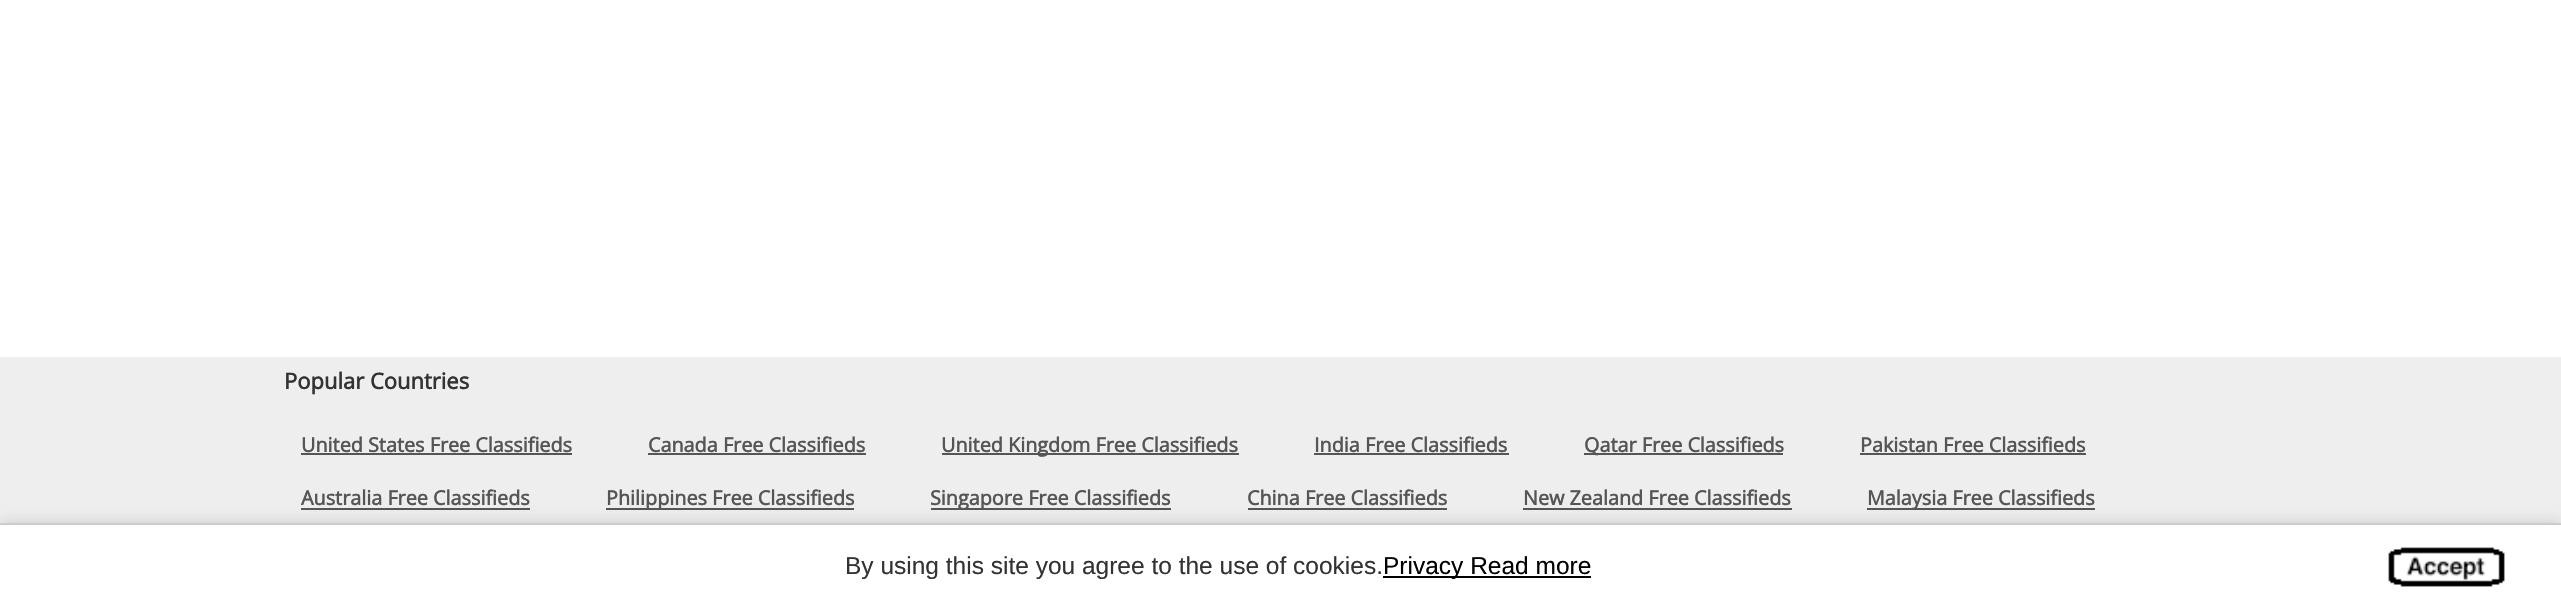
void draw(SkCanvas* canvas) {
    SkPaint paint;
    paint.setAntiAlias(true);
    canvas->clear(0xFFFFFFFF);
    paint.setColor(0xFFEEEEEE);
    canvas->drawRect(SkRect::MakeXYWH(0, 357, 2561, 166), paint);
    SkFont font1(fontMgr->matchFamilyStyle("Open Sans", SkFontStyle::Bold()), 22);
    font1.setSubpixel(true);
    paint.setColor(0xFF333333);
    canvas->drawString("Popular Countries", 284, 389, font1, paint);
    SkFont font2(fontMgr->matchFamilyStyle("Open Sans", SkFontStyle::Bold()), 19.8f);
    font2.setSubpixel(true);
    paint.setColor(0xFF555555);
    canvas->drawString("United States Free Classifieds", 301, 452, font2, paint);
    canvas->drawRect(SkRect::MakeXYWH(301, 453, 271, 2), paint);
    canvas->drawString("Canada Free Classifieds", 648, 452, font2, paint);
    canvas->drawRect(SkRect::MakeXYWH(648, 453, 218, 2), paint);
    canvas->drawRect(SkRect::MakeXYWH(942, 453, 297, 2), paint);
    canvas->drawString("United Kingdom Free Classifieds", 941, 452, font2, paint);
    canvas->drawString("India Free Classifieds", 1314, 452, font2, paint);
    canvas->drawRect(SkRect::MakeXYWH(1314, 453, 195, 2), paint);
    canvas->drawRect(SkRect::MakeXYWH(1584, 453, 199, 2), paint);
    canvas->drawString("Qatar Free Classifieds", 1584, 452, font2, paint);
    canvas->drawString("Pakistan Free Classifieds", 1860, 452, font2, paint);
    canvas->drawRect(SkRect::MakeXYWH(1860, 453, 226, 2), paint);
    canvas->drawString("Australia Free Classifieds", 301, 505, font2, paint);
    canvas->drawRect(SkRect::MakeXYWH(301, 508, 229, 2), paint);
    canvas->drawRect(SkRect::MakeXYWH(606, 508, 248, 2), paint);
    canvas->drawString("Philippines Free Classifieds", 606, 505, font2, paint);
    canvas->drawRect(SkRect::MakeXYWH(931, 508, 240, 2), paint);
    canvas->drawString("Singapore Free Classifieds", 930, 505, font2, paint);
    canvas->drawString("China Free Classifieds", 1247, 505, font2, paint);
    canvas->drawRect(SkRect::MakeXYWH(1248, 508, 199, 2), paint);
    canvas->drawString("New Zealand Free Classifieds", 1523, 505, font2, paint);
    canvas->drawRect(SkRect::MakeXYWH(1523, 508, 269, 2), paint);
    canvas->drawRect(SkRect::MakeXYWH(1867, 508, 228, 2), paint);
    canvas->drawString("Malaysia Free Classifieds", 1867, 505, font2, paint);
    paint.setColor(0x26000000);
    paint.setMaskFilter(SkMaskFilter::MakeBlur(kNormal_SkBlurStyle, 7));
    canvas->drawRect(SkRect::MakeXYWH(0, 523, 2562, 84), paint);
    paint.setMaskFilter(nullptr);
    paint.setColor(0xFFFFFFFF);
    canvas->drawRect(SkRect::MakeXYWH(0, 525, 2561, 79), paint);
    paint.setColor(0xFFCCCCCC);
    canvas->drawRect(SkRect::MakeXYWH(0, 523, 2561, 2), paint);
    SkFont font3(fontMgr->matchFamilyStyle("Liberation Sans", SkFontStyle::Normal()), 24.5f);
    font3.setSubpixel(true);
    paint.setColor(0xFF333333);
    canvas->drawString("By using this site you agree to the use of cookies.", 845, 574, font3, paint);
    paint.setColor(0xFF000000);
    canvas->drawRect(SkRect::MakeXYWH(1383, 576, 208, 2), paint);
    canvas->drawString("Privacy Read more", 1383, 574, font3, paint);
    canvas->drawImageRect(SkImages::DeferredFromEncodedData(SkData::MakeFromFileName("img1.png")), SkRect::MakeXYWH(2388, 547, 117, 40), SkSamplingOptions());
}
